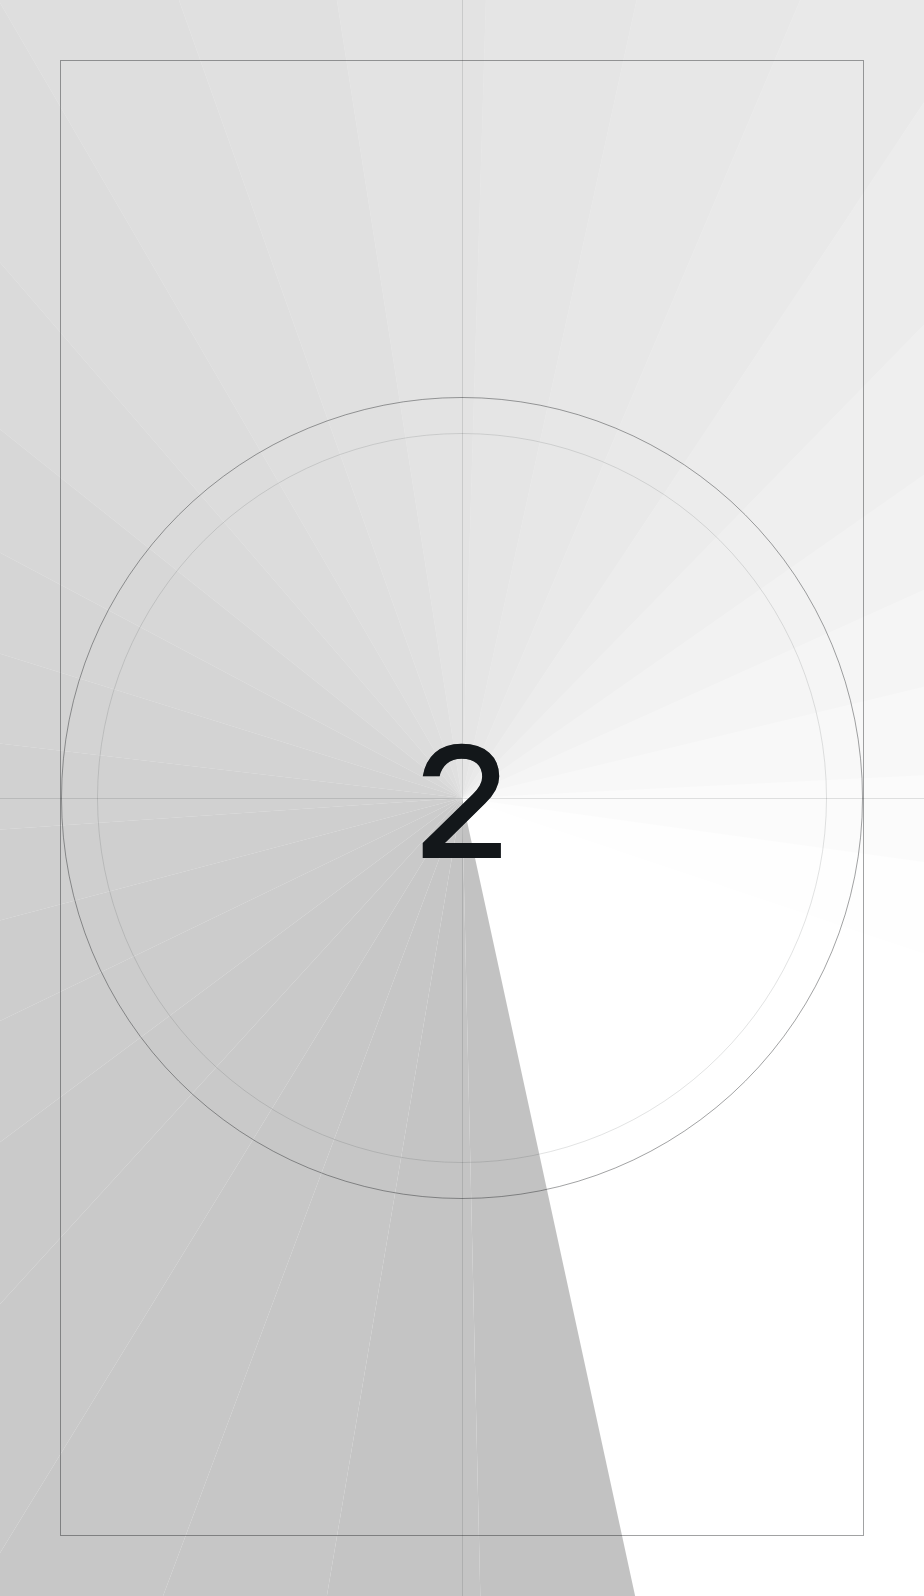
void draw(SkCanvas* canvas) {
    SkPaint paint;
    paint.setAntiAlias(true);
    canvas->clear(0xFFFFFFFF);
    canvas->drawImageRect(SkImages::DeferredFromEncodedData(SkData::MakeFromFileName("img1.png")), SkRect::MakeXYWH(0, 0, 924, 1596), SkSamplingOptions());
    paint.setColor(0x1F13171A);
    canvas->drawRect(SkRect::MakeXYWH(0, 798, 924, 1), paint);
    canvas->drawRect(SkRect::MakeXYWH(462, 0, 1, 1596), paint);
    paint.setStyle(SkPaint::kStroke_Style);
    paint.setStrokeWidth(1);
    paint.setColor(0x6613171A);
    canvas->drawRect(SkRect::MakeXYWH(60.5f, 60.5f, 803, 1475), paint);
    canvas->drawCircle(462, 798, 400.5f, paint);
    paint.setColor(0x1F13171A);
    canvas->drawCircle(462, 798, 364.5f, paint);
    SkFont font1(fontMgr->matchFamilyStyle("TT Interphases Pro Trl", SkFontStyle(500, SkFontStyle::kNormal_Width, SkFontStyle::kUpright_Slant)), 161);
    font1.setSubpixel(true);
    paint.setStyle(SkPaint::kFill_Style);
    paint.setColor(0xFF13171A);
    canvas->drawString("2", 416, 858, font1, paint);
}
